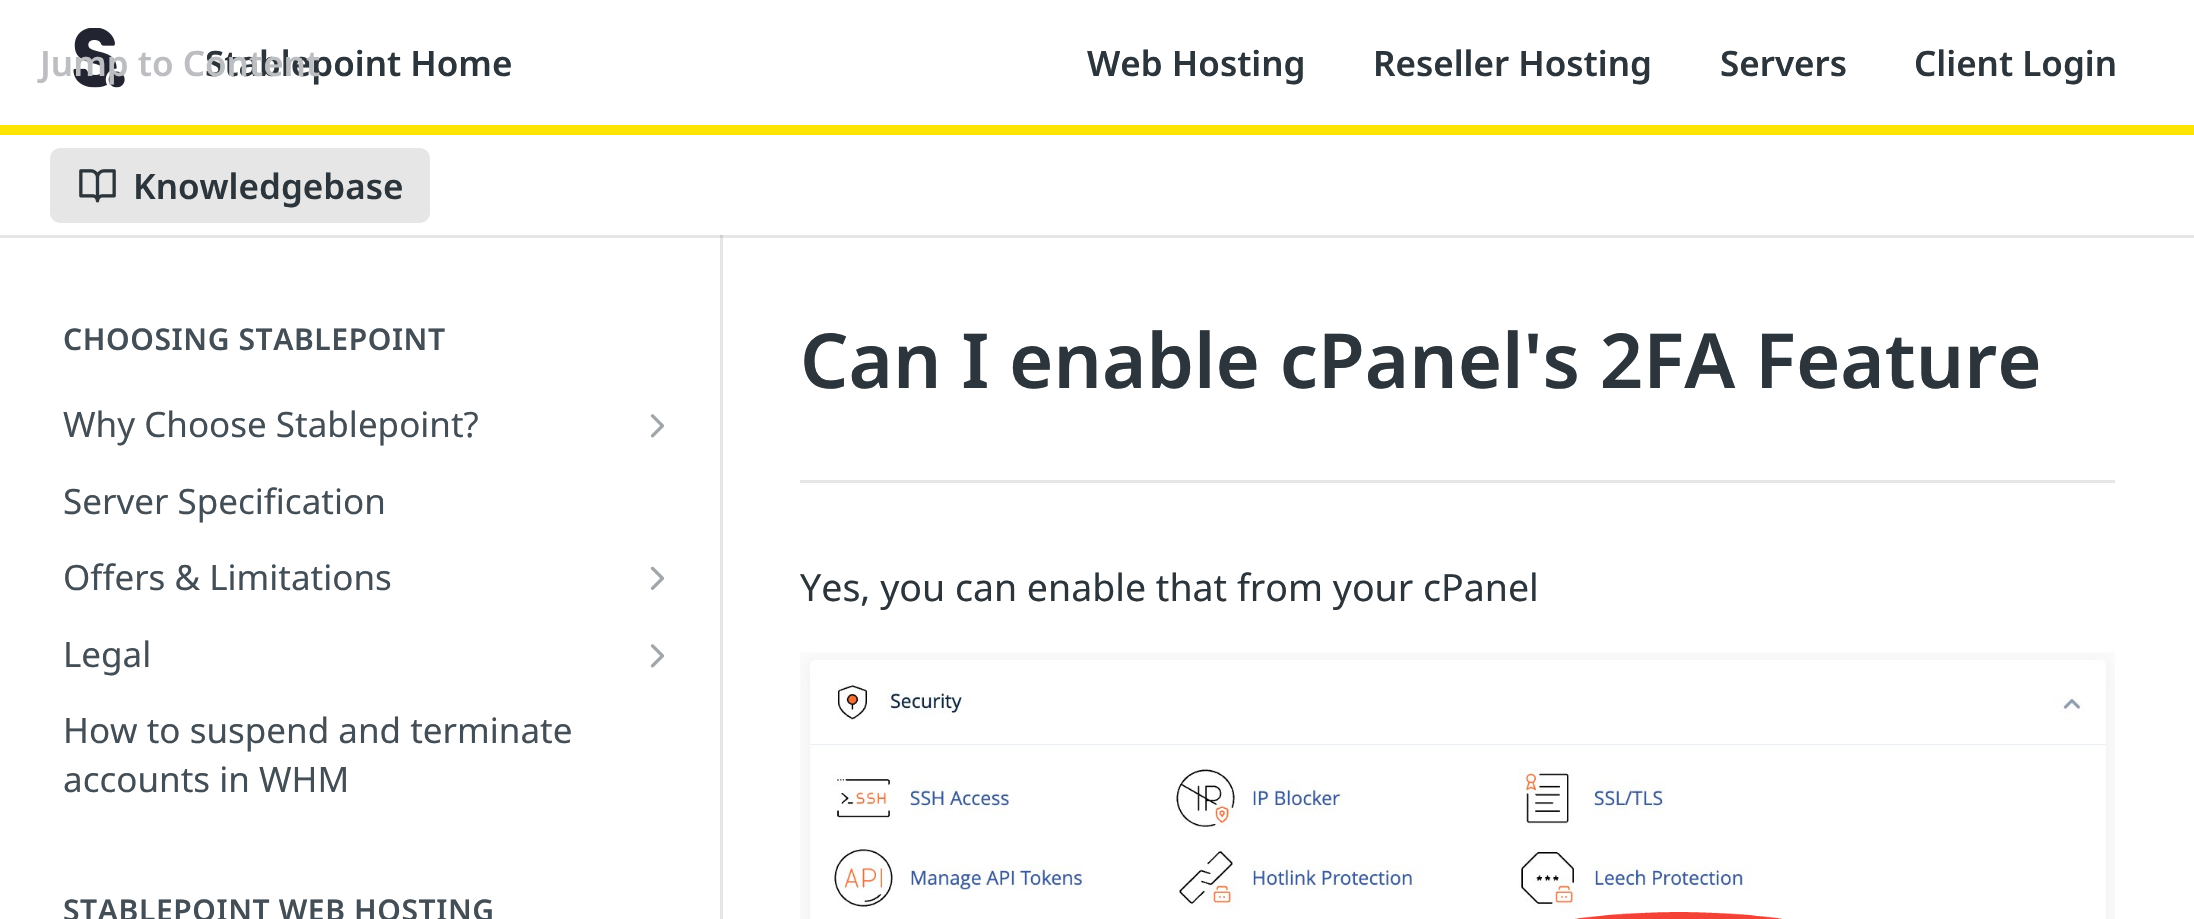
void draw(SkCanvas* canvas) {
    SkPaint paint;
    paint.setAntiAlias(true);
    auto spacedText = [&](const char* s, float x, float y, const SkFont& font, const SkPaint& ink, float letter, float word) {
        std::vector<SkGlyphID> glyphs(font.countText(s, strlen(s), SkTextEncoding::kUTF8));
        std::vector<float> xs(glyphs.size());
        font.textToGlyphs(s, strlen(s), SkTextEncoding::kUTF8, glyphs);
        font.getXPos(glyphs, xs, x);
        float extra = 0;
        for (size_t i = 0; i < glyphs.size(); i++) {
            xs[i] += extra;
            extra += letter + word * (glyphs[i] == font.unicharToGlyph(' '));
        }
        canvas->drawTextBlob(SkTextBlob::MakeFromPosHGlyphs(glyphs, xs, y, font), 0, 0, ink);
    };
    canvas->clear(0xFFFFFFFF);
    paint.setColor(0xFFE6E6E6);
    canvas->drawRect(SkRect::MakeXYWH(0, 235, 2194, 3), paint);
    paint.setColor(0xFFFFE400);
    canvas->drawRect(SkRect::MakeXYWH(0, 125, 2194, 10), paint);
    canvas->drawImageRect(SkImages::DeferredFromEncodedData(SkData::MakeFromFileName("img1.png")), SkRect::MakeXYWH(73, 28, 52, 60), SkSamplingOptions());
    SkFont font1(fontMgr->matchFamilyStyle("Noto Sans", SkFontStyle(600, SkFontStyle::kNormal_Width, SkFontStyle::kUpright_Slant)), 35);
    font1.setSubpixel(true);
    paint.setColor(0xFF2B353B);
    canvas->drawString("Stablepoint Home", 205, 76, font1, paint);
    paint.setColor(0xFFBCBEC1);
    canvas->drawString("Jump to Content", 40, 76, font1, paint);
    paint.setColor(0xFF2B353B);
    canvas->drawString("Web Hosting", 1087, 76, font1, paint);
    canvas->drawString("Reseller Hosting", 1373, 76, font1, paint);
    canvas->drawString("Servers", 1720, 76, font1, paint);
    canvas->drawString("Client Login", 1914, 76, font1, paint);
    paint.setColor(0xFFE6E6E6);
    canvas->drawRoundRect(SkRect::MakeXYWH(50, 148, 380, 75), 10, 10, paint);
    canvas->drawImageRect(SkImages::DeferredFromEncodedData(SkData::MakeFromFileName("img2.png")), SkRect::MakeXYWH(79, 169, 37, 34), SkSamplingOptions());
    paint.setColor(0xFF2B353B);
    canvas->drawString("Knowledgebase", 133, 199, font1, paint);
    paint.setColor(0xFFE6E6E6);
    canvas->drawRect(SkRect::MakeXYWH(720, 235, 3, 684), paint);
    paint.setColor(0xFFCFCFCF);
    canvas->drawRect(SkRect::MakeXYWH(720, 235, 3, 3), paint);
    SkFont font2(fontMgr->matchFamilyStyle("Noto Sans", SkFontStyle(600, SkFontStyle::kNormal_Width, SkFontStyle::kUpright_Slant)), 30);
    font2.setSubpixel(true);
    paint.setColor(0xFF434E56);
    spacedText("CHOOSING STABLEPOINT", 63, 350, font2, paint, 0.6f, 0);
    SkFont font3(fontMgr->matchFamilyStyle("Noto Sans", SkFontStyle::Normal()), 35);
    font3.setSubpixel(true);
    canvas->drawString("Why Choose Stablepoint?", 63, 437, font3, paint);
    canvas->drawImageRect(SkImages::DeferredFromEncodedData(SkData::MakeFromFileName("img3.png")), SkRect::MakeXYWH(650, 414, 15, 24), SkSamplingOptions());
    canvas->drawString("Server Specification", 63, 514, font3, paint);
    canvas->drawString("Offers & Limitations", 63, 590, font3, paint);
    canvas->drawImageRect(SkImages::DeferredFromEncodedData(SkData::MakeFromFileName("img4.png")), SkRect::MakeXYWH(650, 566, 15, 24), SkSamplingOptions());
    canvas->drawString("Legal", 63, 667, font3, paint);
    canvas->drawImageRect(SkImages::DeferredFromEncodedData(SkData::MakeFromFileName("img3.png")), SkRect::MakeXYWH(650, 644, 15, 24), SkSamplingOptions());
    canvas->drawString("How to suspend and terminate", 63, 743, font3, paint);
    canvas->drawString("accounts in WHM", 63, 792, font3, paint);
    spacedText("STABLEPOINT WEB HOSTING", 63, 921, font2, paint, 0.6f, 0);
    paint.setColor(0xFFE6E6E6);
    canvas->drawRect(SkRect::MakeXYWH(800, 480, 1315, 3), paint);
    SkFont font4(fontMgr->matchFamilyStyle("Noto Sans", SkFontStyle(600, SkFontStyle::kNormal_Width, SkFontStyle::kUpright_Slant)), 76);
    font4.setSubpixel(true);
    paint.setColor(0xFF2B353B);
    canvas->drawString("Can I enable cPanel's 2FA Feature", 800, 388, font4, paint);
    SkFont font5(fontMgr->matchFamilyStyle("Noto Sans", SkFontStyle::Normal()), 37.5f);
    font5.setSubpixel(true);
    canvas->drawString("Yes, you can enable that from your cPanel", 800, 601, font5, paint);
    canvas->drawImageRect(SkImages::DeferredFromEncodedData(SkData::MakeFromFileName("img5.png")), SkRect::MakeXYWH(800, 652, 1315, 267), SkSamplingOptions());
}
